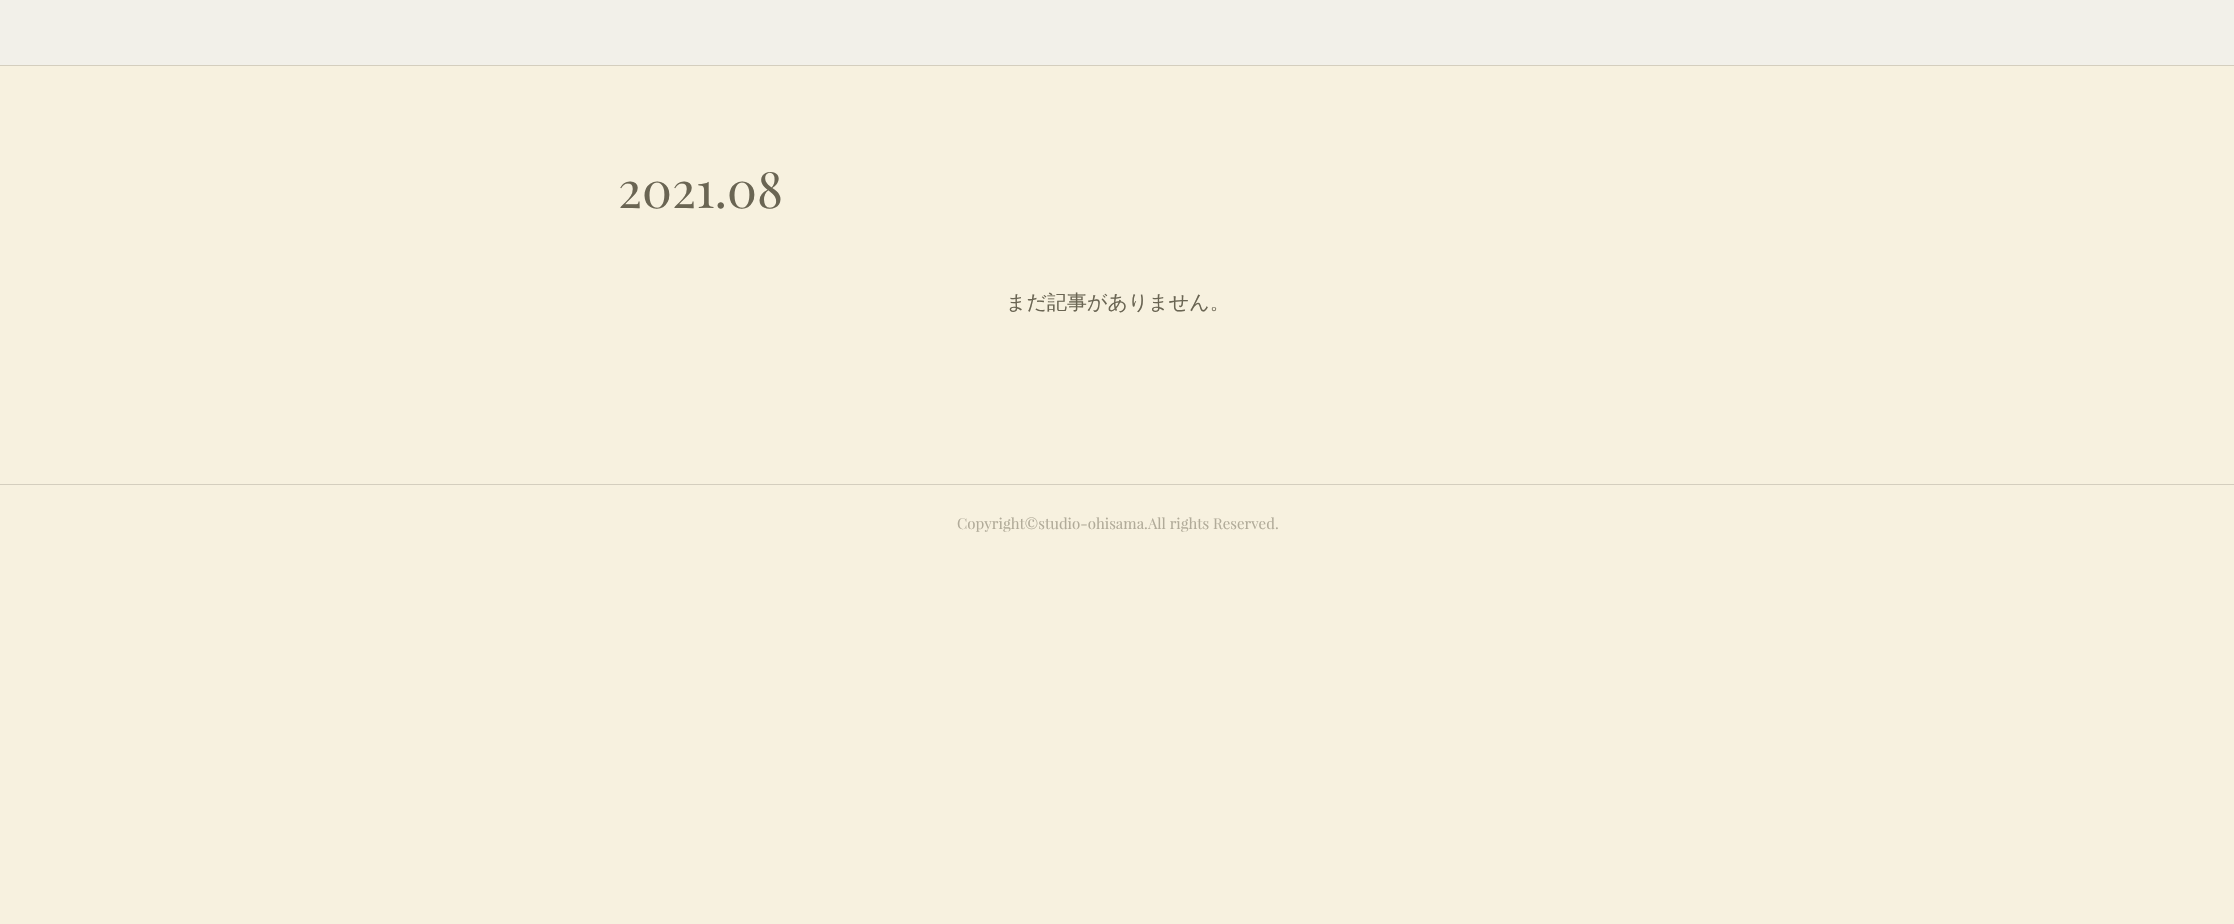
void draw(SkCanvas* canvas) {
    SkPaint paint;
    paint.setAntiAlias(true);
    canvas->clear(0xFFF7F1DF);
    paint.setColor(0xFFF2F0E9);
    canvas->drawRect(SkRect::MakeXYWH(0, 0, 2234, 65), paint);
    paint.setColor(0xFFD4CEBE);
    canvas->drawRect(SkRect::MakeXYWH(0, 65, 2234, 1), paint);
    SkFont font1(fontMgr->matchFamilyStyle("Playfair Display", SkFontStyle::Normal()), 50);
    font1.setSubpixel(true);
    paint.setColor(0xFF6A6553);
    canvas->drawString("2021.08", 618, 208, font1, paint);
    SkFont font2(fontMgr->matchFamilyStyle("WenQuanYi Zen Hei", SkFontStyle(500, SkFontStyle::kNormal_Width, SkFontStyle::kUpright_Slant)), 20);
    font2.setSubpixel(true);
    canvas->drawString("まだ記事がありません。", 1006, 309, font2, paint);
    paint.setColor(0xFFD4CEBE);
    canvas->drawRect(SkRect::MakeXYWH(0, 484, 2234, 1), paint);
    SkFont font3(fontMgr->matchFamilyStyle("Playfair Display", SkFontStyle::Normal()), 15);
    font3.setSubpixel(true);
    paint.setColor(0xFFB1AB99);
    canvas->drawString("Copyright©studio-ohisama.All rights Reserved.", 957, 529, font3, paint);
}
